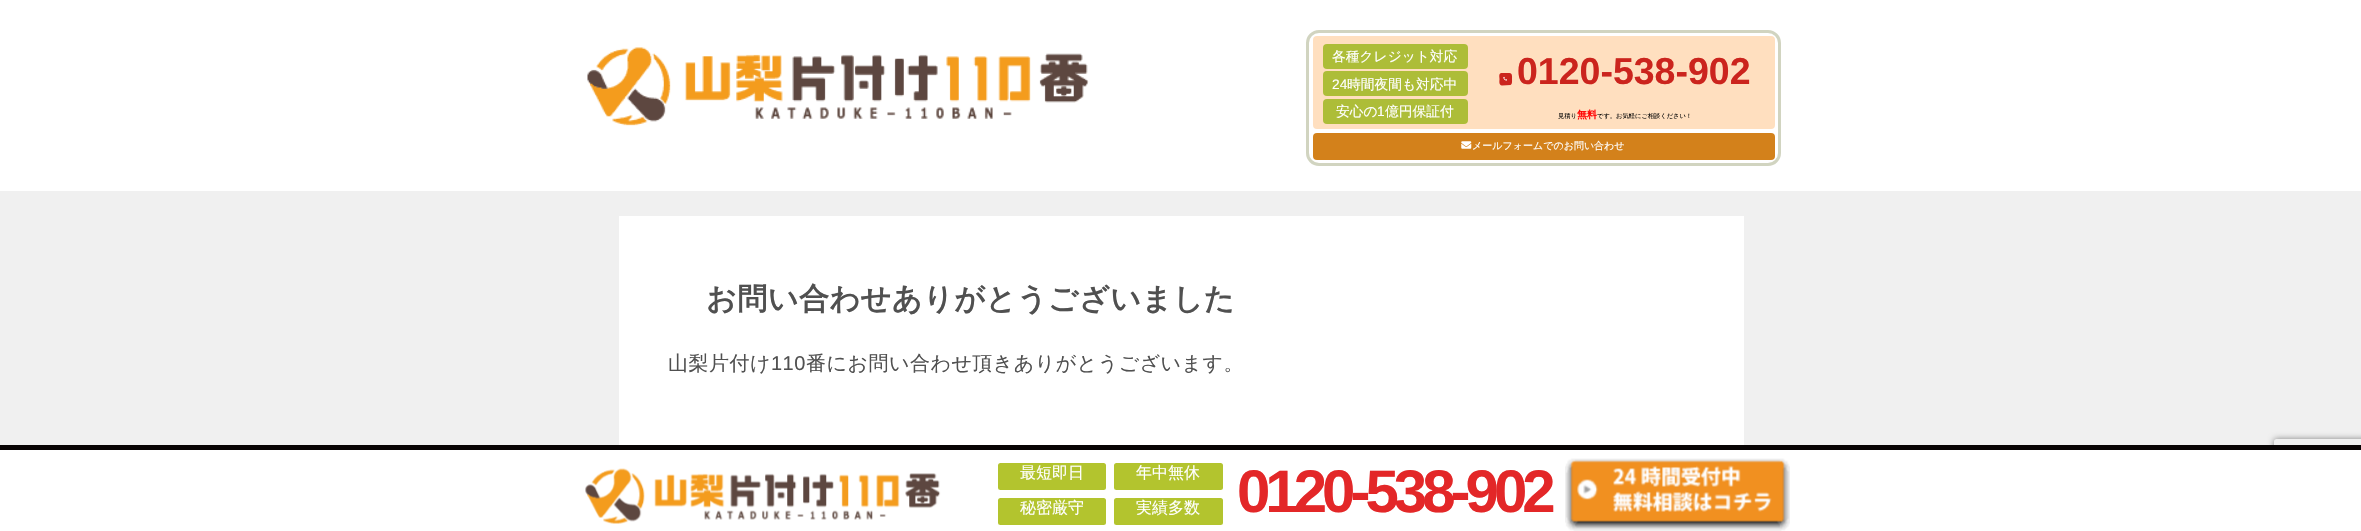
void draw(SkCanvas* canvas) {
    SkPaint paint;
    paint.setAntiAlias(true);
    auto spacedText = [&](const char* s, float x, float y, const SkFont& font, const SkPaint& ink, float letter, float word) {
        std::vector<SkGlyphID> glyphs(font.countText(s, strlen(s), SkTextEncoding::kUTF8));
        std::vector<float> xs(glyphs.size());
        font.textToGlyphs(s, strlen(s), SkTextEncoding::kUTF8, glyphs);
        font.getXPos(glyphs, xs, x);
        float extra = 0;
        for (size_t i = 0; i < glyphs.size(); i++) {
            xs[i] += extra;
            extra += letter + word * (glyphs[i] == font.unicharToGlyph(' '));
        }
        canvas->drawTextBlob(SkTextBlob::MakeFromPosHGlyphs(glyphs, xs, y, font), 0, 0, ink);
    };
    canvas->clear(0xFFF0F0F0);
    paint.setColor(0xFFFFFFFF);
    canvas->drawRect(SkRect::MakeXYWH(0, 0, 2361, 191), paint);
    canvas->drawImageRect(SkImages::DeferredFromEncodedData(SkData::MakeFromFileName("img1.png")), SkRect::MakeXYWH(587, 47, 502, 79), SkSamplingOptions());
    paint.setStyle(SkPaint::kStroke_Style);
    paint.setStrokeWidth(3);
    paint.setColor(0xFFD1D4C0);
    canvas->drawRoundRect(SkRect::MakeXYWH(1307.5f, 31.5f, 472, 133), 11.5f, 11.5f, paint);
    paint.setStyle(SkPaint::kFill_Style);
    paint.setColor(0xFFFFDFBF);
    canvas->drawRoundRect(SkRect::MakeXYWH(1313, 36, 462, 93), 4, 4, paint);
    paint.setColor(0xFFADBD38);
    canvas->drawRoundRect(SkRect::MakeXYWH(1323, 44, 145, 25), 4, 4, paint);
    SkFont font1(fontMgr->matchFamilyStyle("WenQuanYi Zen Hei", SkFontStyle(500, SkFontStyle::kNormal_Width, SkFontStyle::kUpright_Slant)), 13.75f);
    font1.setSubpixel(true);
    paint.setColor(0xFFFFFFFF);
    canvas->drawString("各種クレジット対応", 1332, 61, font1, paint);
    paint.setColor(0xFFADBD38);
    canvas->drawRoundRect(SkRect::MakeXYWH(1323, 71, 145, 25), 4, 4, paint);
    SkFont font2(fontMgr->matchFamilyStyle("Liberation Sans", SkFontStyle::Normal()), 13.75f);
    font2.setSubpixel(true);
    paint.setColor(0xFFFFFFFF);
    canvas->drawString("24", 1332, 89, font2, paint);
    canvas->drawString("時間夜間も対応中", 1347, 89, font1, paint);
    paint.setColor(0xFFADBD38);
    canvas->drawRoundRect(SkRect::MakeXYWH(1323, 99, 145, 25), 4, 4, paint);
    paint.setColor(0xFFFFFFFF);
    canvas->drawString("安心の", 1336, 116, font1, paint);
    canvas->drawString("1", 1377, 116, font2, paint);
    canvas->drawString("億円保証付", 1385, 116, font1, paint);
    paint.setColor(0xFFCB241D);
    canvas->drawPath(SkPathBuilder().moveTo(1509.5f, 73).lineTo(1501, 73).cubicTo(1498.5f, 74, 1499.5f, 77, 1499.5f, 79).cubicTo(1499.5f, 81, 1498.5f, 85, 1502, 85.5f).lineTo(1510.5f, 85).cubicTo(1512.5f, 84, 1512, 81, 1512, 79).cubicTo(1512, 77, 1512.5f, 73, 1509.5f, 73).close().detach(), paint);
    canvas->drawImageRect(SkImages::DeferredFromEncodedData(SkData::MakeFromFileName("img2.png")), SkRect::MakeXYWH(1503, 76, 4, 5), SkSamplingOptions());
    SkFont font3(fontMgr->matchFamilyStyle("Liberation Sans", SkFontStyle::Bold()), 37.5f);
    font3.setSubpixel(true);
    canvas->drawString("0120-538-902", 1517, 84, font3, paint);
    SkFont font4(fontMgr->matchFamilyStyle("WenQuanYi Zen Hei", SkFontStyle(500, SkFontStyle::kNormal_Width, SkFontStyle::kUpright_Slant)), 6.25f);
    font4.setSubpixel(true);
    paint.setColor(0xFF000000);
    canvas->drawString("見積り", 1558, 118, font4, paint);
    SkFont font5(fontMgr->matchFamilyStyle("WenQuanYi Zen Hei", SkFontStyle::Bold()), 10);
    font5.setSubpixel(true);
    paint.setColor(0xFFFF0000);
    canvas->drawString("無料", 1577, 118, font5, paint);
    paint.setColor(0xFF000000);
    canvas->drawString("です。お気軽にご相談ください！", 1597, 118, font4, paint);
    paint.setColor(0xFFD3811B);
    canvas->drawRoundRect(SkRect::MakeXYWH(1313, 133, 462, 27), 4, 4, paint);
    canvas->drawImageRect(SkImages::DeferredFromEncodedData(SkData::MakeFromFileName("img3.png")), SkRect::MakeXYWH(1461, 141, 11, 8), SkSamplingOptions());
    SkFont font6(fontMgr->matchFamilyStyle("WenQuanYi Zen Hei", SkFontStyle(500, SkFontStyle::kNormal_Width, SkFontStyle::kUpright_Slant)), 10);
    font6.setSubpixel(true);
    paint.setColor(0xFFFFFFFF);
    canvas->drawString("メールフォームでのお問い合わせ", 1472, 149, font6, paint);
    canvas->drawRect(SkRect::MakeXYWH(619, 216, 1125, 229), paint);
    SkFont font7(fontMgr->matchFamilyStyle("WenQuanYi Zen Hei", SkFontStyle::Bold()), 30);
    font7.setSubpixel(true);
    paint.setColor(0xFF505050);
    spacedText("お問い合わせありがとうございました", 706, 309, font7, paint, 0.5f, 0);
    SkFont font8(fontMgr->matchFamilyStyle("WenQuanYi Zen Hei", SkFontStyle(500, SkFontStyle::kNormal_Width, SkFontStyle::kUpright_Slant)), 20);
    font8.setSubpixel(true);
    spacedText("山梨片付け", 668, 370, font8, paint, 0.5f, 0);
    SkFont font9(fontMgr->matchFamilyStyle("Liberation Sans", SkFontStyle::Normal()), 20);
    font9.setSubpixel(true);
    spacedText("110", 771, 370, font9, paint, 0.5f, 0);
    spacedText("番にお問い合わせ頂きありがとうございます。", 806, 370, font8, paint, 0.5f, 0);
    canvas->save();
    canvas->clipPath(SkPathBuilder(SkPathFillType::kEvenOdd).moveTo(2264, 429).lineTo(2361, 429).lineTo(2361, 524).lineTo(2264, 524).close().moveTo(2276.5f, 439).lineTo(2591.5f, 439).cubicTo(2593, 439, 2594, 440, 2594, 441.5f).lineTo(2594, 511.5f).cubicTo(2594, 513, 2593, 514, 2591.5f, 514).lineTo(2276.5f, 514).cubicTo(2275, 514, 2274, 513, 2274, 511.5f).lineTo(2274, 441.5f).cubicTo(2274, 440, 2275, 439, 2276.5f, 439).close().detach(), true);
    paint.setColor(0xFF808080);
    paint.setMaskFilter(SkMaskFilter::MakeBlur(kNormal_SkBlurStyle, 3));
    canvas->drawRoundRect(SkRect::MakeXYWH(2274, 439, 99, 75), 2.5f, 2.5f, paint);
    paint.setMaskFilter(nullptr);
    canvas->restore();
    paint.setColor(0xFFFFFFFF);
    canvas->drawRect(SkRect::MakeXYWH(0, 450, 2361, 81), paint);
    paint.setColor(0xFF080404);
    canvas->drawRect(SkRect::MakeXYWH(0, 445, 2361, 5), paint);
    canvas->drawImageRect(SkImages::DeferredFromEncodedData(SkData::MakeFromFileName("img4.png")), SkRect::MakeXYWH(585, 468, 356, 56), SkSamplingOptions());
    paint.setColor(0xFFB3C42E);
    canvas->drawRoundRect(SkRect::MakeXYWH(998, 463, 108, 27), 2.5f, 2.5f, paint);
    SkFont font10(fontMgr->matchFamilyStyle("WenQuanYi Zen Hei", SkFontStyle(500, SkFontStyle::kNormal_Width, SkFontStyle::kUpright_Slant)), 16);
    font10.setSubpixel(true);
    paint.setColor(0xFFFFFFFF);
    canvas->drawString("最短即日", 1020, 478, font10, paint);
    paint.setColor(0xFFB3C42E);
    canvas->drawRoundRect(SkRect::MakeXYWH(1114, 463, 109, 27), 2.5f, 2.5f, paint);
    paint.setColor(0xFFFFFFFF);
    canvas->drawString("年中無休", 1136, 478, font10, paint);
    paint.setColor(0xFFB3C42E);
    canvas->drawRoundRect(SkRect::MakeXYWH(998, 498, 108, 27), 2.5f, 2.5f, paint);
    paint.setColor(0xFFFFFFFF);
    canvas->drawString("秘密厳守", 1020, 513, font10, paint);
    paint.setColor(0xFFB3C42E);
    canvas->drawRoundRect(SkRect::MakeXYWH(1114, 498, 109, 27), 2.5f, 2.5f, paint);
    paint.setColor(0xFFFFFFFF);
    canvas->drawString("実績多数", 1136, 513, font10, paint);
    SkFont font11(fontMgr->matchFamilyStyle("Liberation Sans", SkFontStyle::Bold()), 60);
    font11.setSubpixel(true);
    paint.setColor(0xFFE32728);
    spacedText("0120-538-902", 1237, 512, font11, paint, -5, 0);
    canvas->drawImageRect(SkImages::DeferredFromEncodedData(SkData::MakeFromFileName("img5.png")), SkRect::MakeXYWH(1565, 458, 225, 73), SkSamplingOptions());
}
